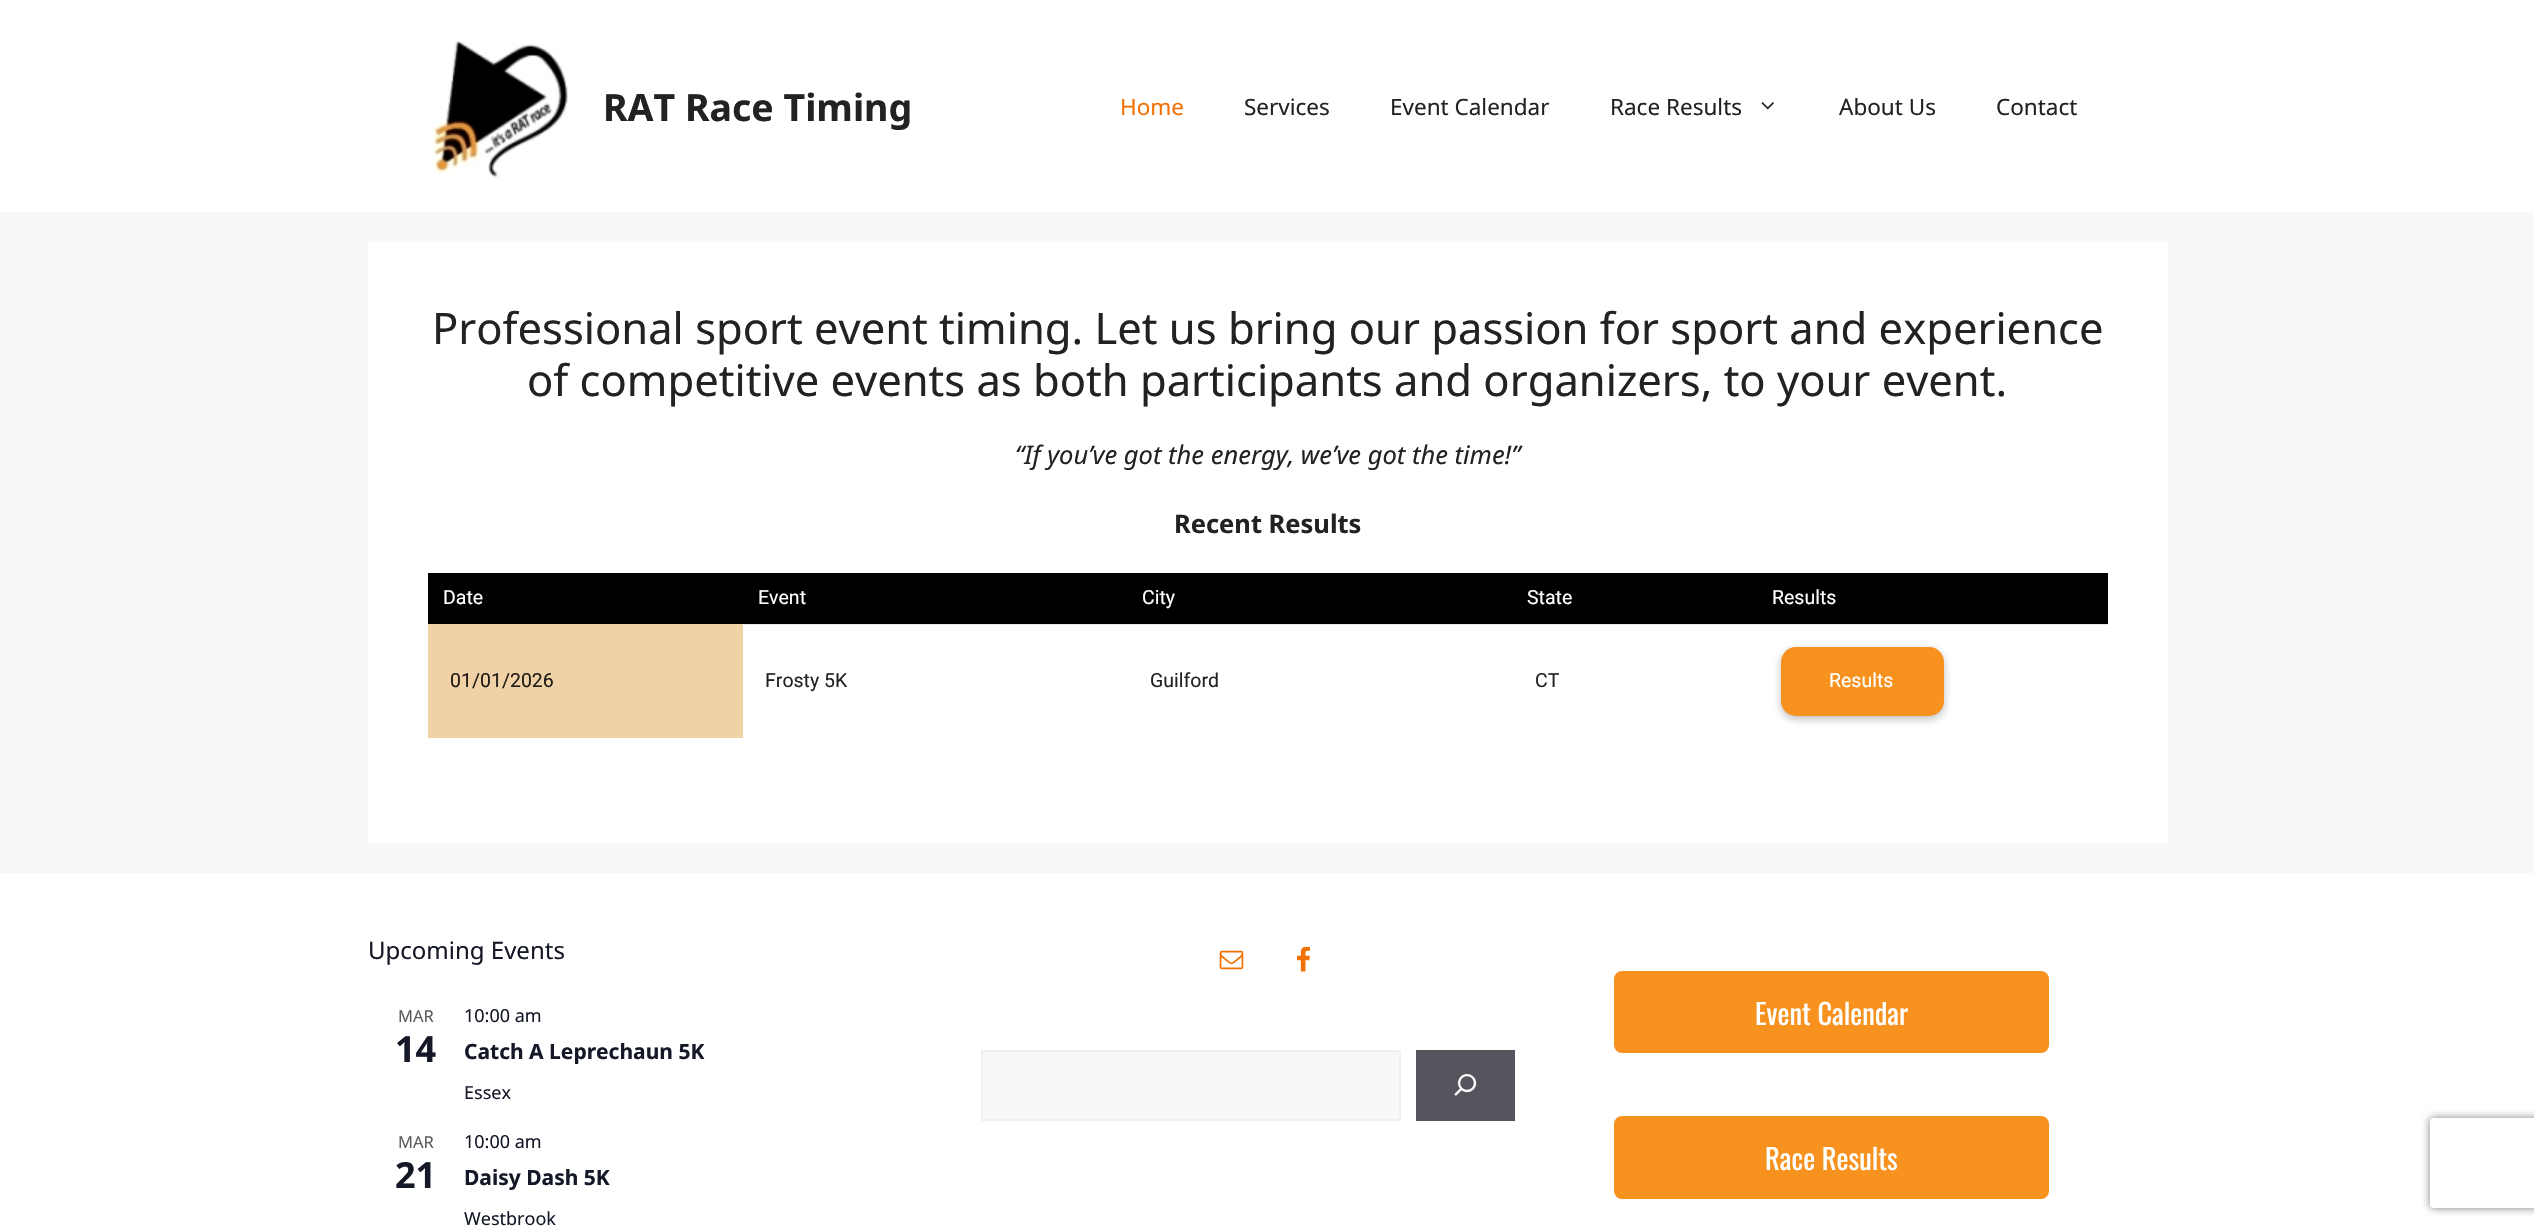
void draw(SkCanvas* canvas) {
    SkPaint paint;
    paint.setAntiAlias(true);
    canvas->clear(0xFFF7F8F9);
    paint.setColor(0xFFFFFFFF);
    canvas->drawRect(SkRect::MakeXYWH(0, 0, 2534, 212), paint);
    canvas->drawImageRect(SkImages::DeferredFromEncodedData(SkData::MakeFromFileName("img1.png")), SkRect::MakeXYWH(432, 40, 137, 138), SkSamplingOptions());
    SkFont font1(fontMgr->matchFamilyStyle("Noto Sans", SkFontStyle::Bold()), 37.5f);
    font1.setSubpixel(true);
    paint.setColor(0xFF222222);
    canvas->drawString("RAT Race Timing", 603, 121, font1, paint);
    SkFont font2(fontMgr->matchFamilyStyle("Noto Sans", SkFontStyle::Normal()), 22.5f);
    font2.setSubpixel(true);
    paint.setColor(0xFFF27105);
    canvas->drawString("Home", 1120, 115, font2, paint);
    paint.setColor(0xFF222222);
    canvas->drawString("Services", 1244, 115, font2, paint);
    canvas->drawString("Event Calendar", 1390, 115, font2, paint);
    canvas->drawString("Race Results", 1610, 115, font2, paint);
    canvas->drawImageRect(SkImages::DeferredFromEncodedData(SkData::MakeFromFileName("img2.png")), SkRect::MakeXYWH(1761, 102, 13, 8), SkSamplingOptions());
    canvas->drawString("About Us", 1839, 115, font2, paint);
    canvas->drawString("Contact", 1996, 115, font2, paint);
    paint.setColor(0xFFFFFFFF);
    canvas->drawRect(SkRect::MakeXYWH(368, 242, 1800, 601), paint);
    SkFont font3(fontMgr->matchFamilyStyle("Noto Sans", SkFontStyle::Normal()), 43.5f);
    font3.setSubpixel(true);
    paint.setColor(0xFF222222);
    canvas->drawString("Professional sport event timing. Let us bring our passion for sport and experience", 432, 344, font3, paint);
    canvas->drawString("of competitive events as both participants and organizers, to your event.", 527, 396, font3, paint);
    SkFont font4(fontMgr->matchFamilyStyle("Noto Sans", SkFontStyle::Italic()), 25.5f);
    font4.setSubpixel(true);
    canvas->drawString("“If you’ve got the energy, we’ve got the time!”", 1015, 464, font4, paint);
    SkFont font5(fontMgr->matchFamilyStyle("Noto Sans", SkFontStyle::Bold()), 25.5f);
    font5.setSubpixel(true);
    canvas->drawString("Recent Results", 1174, 533, font5, paint);
    paint.setColor(0xFFE9E9E9);
    canvas->drawRect(SkRect::MakeXYWH(1757, 623, 352, 2), paint);
    paint.setColor(0xFF000000);
    canvas->drawRect(SkRect::MakeXYWH(428, 573, 1680, 51), paint);
    SkFont font6(fontMgr->matchFamilyStyle("Roboto", SkFontStyle::Normal()), 19.5f);
    font6.setSubpixel(true);
    paint.setColor(0xFFFFFFFF);
    canvas->drawString("Date", 443, 604, font6, paint);
    canvas->drawString("Event", 758, 604, font6, paint);
    canvas->drawString("City", 1142, 604, font6, paint);
    canvas->drawString("State", 1527, 604, font6, paint);
    canvas->drawString("Results", 1772, 604, font6, paint);
    paint.setColor(0xFFF0D2A6);
    canvas->drawRect(SkRect::MakeXYWH(428, 624, 315, 114), paint);
    paint.setColor(0xFF1F1B16);
    canvas->drawString("01/01/2026", 450, 687, font6, paint);
    paint.setColor(0xFF222222);
    canvas->drawString("Frosty 5K", 765, 687, font6, paint);
    canvas->drawString("Guilford", 1150, 687, font6, paint);
    paint.setColor(0xFFE9E9E9);
    canvas->drawRect(SkRect::MakeXYWH(743, 624, 1015, 1), paint);
    paint.setColor(0xFF222222);
    canvas->drawString("CT", 1535, 687, font6, paint);
    paint.setColor(0x807A7A7A);
    paint.setMaskFilter(SkMaskFilter::MakeBlur(kNormal_SkBlurStyle, 4.5f));
    canvas->drawRoundRect(SkRect::MakeXYWH(1781, 650, 163, 69), 15, 15, paint);
    paint.setMaskFilter(nullptr);
    paint.setColor(0xFFF7921E);
    canvas->drawRoundRect(SkRect::MakeXYWH(1781, 647, 163, 69), 15, 15, paint);
    paint.setColor(0xFFFFFFFF);
    canvas->drawString("Results", 1829, 687, font6, paint);
    canvas->drawRect(SkRect::MakeXYWH(0, 873, 2534, 355), paint);
    SkFont font7(fontMgr->matchFamilyStyle("Noto Sans", SkFontStyle::Normal()), 24);
    font7.setSubpixel(true);
    paint.setColor(0xFF141827);
    canvas->drawString("Upcoming Events", 368, 959, font7, paint);
    SkFont font8(fontMgr->matchFamilyStyle("Noto Sans", SkFontStyle::Normal()), 16.5f);
    font8.setSubpixel(true);
    paint.setColor(0xFF5D5D5D);
    canvas->drawString("MAR", 398, 1022, font8, paint);
    SkFont font9(fontMgr->matchFamilyStyle("Noto Sans", SkFontStyle::Bold()), 36);
    font9.setSubpixel(true);
    paint.setColor(0xFF141827);
    canvas->drawString("14", 395, 1062, font9, paint);
    SkFont font10(fontMgr->matchFamilyStyle("Noto Sans", SkFontStyle::Normal()), 18);
    font10.setSubpixel(true);
    canvas->drawString("10:00 am", 464, 1022, font10, paint);
    SkFont font11(fontMgr->matchFamilyStyle("Noto Sans", SkFontStyle::Bold()), 21);
    font11.setSubpixel(true);
    canvas->drawString("Catch A Leprechaun 5K", 464, 1059, font11, paint);
    canvas->drawString("Essex", 464, 1099, font10, paint);
    paint.setColor(0xFF5D5D5D);
    canvas->drawString("MAR", 398, 1148, font8, paint);
    paint.setColor(0xFF141827);
    canvas->drawString("21", 395, 1188, font9, paint);
    canvas->drawString("10:00 am", 464, 1148, font10, paint);
    canvas->drawString("Daisy Dash 5K", 464, 1185, font11, paint);
    canvas->drawString("Westbrook", 464, 1225, font10, paint);
    canvas->drawImageRect(SkImages::DeferredFromEncodedData(SkData::MakeFromFileName("img3.png")), SkRect::MakeXYWH(1219, 950, 25, 20), SkSamplingOptions());
    canvas->drawImageRect(SkImages::DeferredFromEncodedData(SkData::MakeFromFileName("img4.png")), SkRect::MakeXYWH(1297, 946, 13, 26), SkSamplingOptions());
    paint.setColor(0xFFF7F8F9);
    canvas->drawRect(SkRect::MakeXYWH(982, 1051, 418, 69), paint);
    paint.setStyle(SkPaint::kStroke_Style);
    paint.setStrokeWidth(2);
    paint.setColor(0xFFF0F0F0);
    canvas->drawRect(SkRect::MakeXYWH(982, 1051, 418, 69), paint);
    paint.setStyle(SkPaint::kFill_Style);
    paint.setColor(0xFF55555E);
    canvas->drawRect(SkRect::MakeXYWH(1416, 1050, 99, 71), paint);
    canvas->drawImageRect(SkImages::DeferredFromEncodedData(SkData::MakeFromFileName("img5.png")), SkRect::MakeXYWH(1454, 1074, 23, 22), SkSamplingOptions());
    paint.setColor(0xFFF7921E);
    canvas->drawRoundRect(SkRect::MakeXYWH(1615, 972, 433, 80), 7, 7, paint);
    paint.setStyle(SkPaint::kStroke_Style);
    canvas->drawRoundRect(SkRect::MakeXYWH(1615, 972, 433, 80), 7, 7, paint);
    SkFont font12(fontMgr->matchFamilyStyle("Oswald", SkFontStyle::Normal()), 28.5f);
    font12.setSubpixel(true);
    paint.setStyle(SkPaint::kFill_Style);
    paint.setColor(0xFFFFFFFF);
    canvas->drawString("Event Calendar", 1755, 1025, font12, paint);
    paint.setColor(0xFFF7921E);
    canvas->drawRoundRect(SkRect::MakeXYWH(1615, 1117, 433, 81), 7, 7, paint);
    paint.setStyle(SkPaint::kStroke_Style);
    canvas->drawRoundRect(SkRect::MakeXYWH(1615, 1117, 433, 81), 7, 7, paint);
    paint.setStyle(SkPaint::kFill_Style);
    paint.setColor(0xFFFFFFFF);
    canvas->drawString("Race Results", 1765, 1170, font12, paint);
    canvas->save();
    canvas->clipPath(SkPathBuilder(SkPathFillType::kEvenOdd).moveTo(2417, 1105).lineTo(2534, 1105).lineTo(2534, 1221).lineTo(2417, 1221).close().moveTo(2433, 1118).lineTo(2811, 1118).cubicTo(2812.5f, 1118, 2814, 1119.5f, 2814, 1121).lineTo(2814, 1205).cubicTo(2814, 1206.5f, 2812.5f, 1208, 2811, 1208).lineTo(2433, 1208).cubicTo(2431.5f, 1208, 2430, 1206.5f, 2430, 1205).lineTo(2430, 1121).cubicTo(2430, 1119.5f, 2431.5f, 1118, 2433, 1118).close().detach(), true);
    paint.setColor(0xFF808080);
    paint.setMaskFilter(SkMaskFilter::MakeBlur(kNormal_SkBlurStyle, 4));
    canvas->drawRoundRect(SkRect::MakeXYWH(2430, 1118, 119, 90), 3, 3, paint);
    paint.setMaskFilter(nullptr);
    canvas->restore();
}
